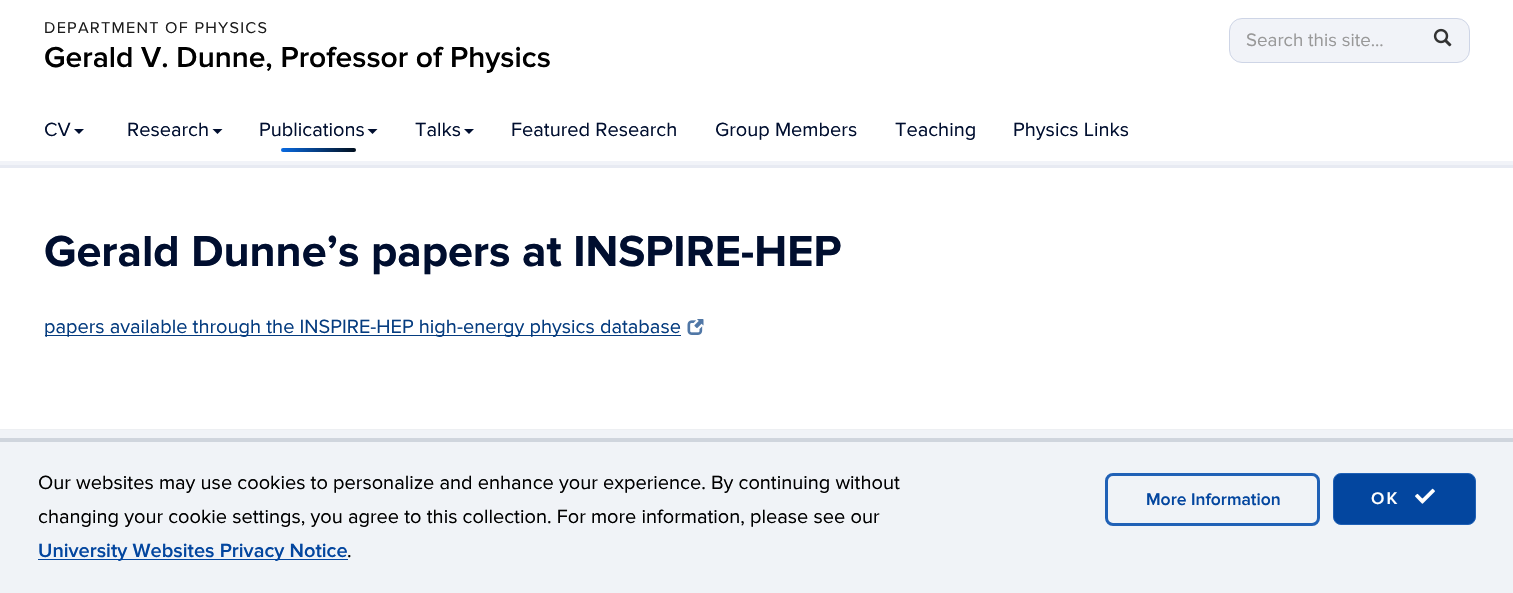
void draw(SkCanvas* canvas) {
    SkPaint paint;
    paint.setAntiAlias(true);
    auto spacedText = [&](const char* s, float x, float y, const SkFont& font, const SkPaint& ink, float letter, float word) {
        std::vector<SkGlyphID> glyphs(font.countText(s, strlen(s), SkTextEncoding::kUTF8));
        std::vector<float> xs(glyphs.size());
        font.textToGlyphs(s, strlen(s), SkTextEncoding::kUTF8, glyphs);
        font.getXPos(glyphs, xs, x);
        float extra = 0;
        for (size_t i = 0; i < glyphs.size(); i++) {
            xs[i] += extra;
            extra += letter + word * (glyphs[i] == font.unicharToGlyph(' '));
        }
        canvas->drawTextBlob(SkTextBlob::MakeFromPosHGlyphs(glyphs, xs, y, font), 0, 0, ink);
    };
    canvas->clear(0xFFFFFFFF);
    SkFont font1(fontMgr->matchFamilyStyle("Proxima Nova", SkFontStyle::Normal()), 16.25f);
    font1.setSubpixel(true);
    paint.setColor(0xFF1C1C1C);
    spacedText("DEPARTMENT OF PHYSICS", 44, 33, font1, paint, 1.25f, 0);
    SkFont font2(fontMgr->matchFamilyStyle("Proxima Nova", SkFontStyle(600, SkFontStyle::kNormal_Width, SkFontStyle::kUpright_Slant)), 30);
    font2.setSubpixel(true);
    paint.setColor(0xFF000000);
    canvas->drawString("Gerald V. Dunne, Professor of Physics", 44, 67, font2, paint);
    paint.setColor(0xFFF1F3F8);
    canvas->drawRoundRect(SkRect::MakeXYWH(1229.5f, 18.5f, 240, 44), 12.5f, 12.5f, paint);
    paint.setStyle(SkPaint::kStroke_Style);
    paint.setStrokeWidth(1);
    paint.setColor(0xFFCED5E6);
    canvas->drawRoundRect(SkRect::MakeXYWH(1229.5f, 18.5f, 240, 44), 12.5f, 12.5f, paint);
    SkFont font3(fontMgr->matchFamilyStyle("Proxima Nova", SkFontStyle::Normal()), 18.75f);
    font3.setSubpixel(true);
    paint.setStyle(SkPaint::kFill_Style);
    paint.setColor(0xFF999999);
    canvas->drawString("Search this site...", 1246, 46, font3, paint);
    canvas->drawImageRect(SkImages::DeferredFromEncodedData(SkData::MakeFromFileName("img1.png")), SkRect::MakeXYWH(1433, 28, 19, 19), SkSamplingOptions());
    SkFont font4(fontMgr->matchFamilyStyle("Proxima Nova", SkFontStyle::Normal()), 20);
    font4.setSubpixel(true);
    paint.setColor(0xFF000E2F);
    canvas->drawString("CV", 44, 136, font4, paint);
    canvas->drawPath(SkPathBuilder().moveTo(74, 129).lineTo(84, 129).lineTo(79, 134).close().detach(), paint);
    canvas->drawString("Research", 127, 136, font4, paint);
    canvas->drawPath(SkPathBuilder().moveTo(212.5f, 129).lineTo(222.5f, 129).lineTo(217.5f, 134).close().detach(), paint);
    canvas->drawString("Publications", 259, 136, font4, paint);
    canvas->drawPath(SkPathBuilder().moveTo(367.5f, 129).lineTo(377.5f, 129).lineTo(372.5f, 134).close().detach(), paint);
    {
        const SkColor colors[] = {0xFF096AE1, 0xFF010E1D};
        const float stops[] = {0, 1};
        const SkPoint ends[] = {{281, 149}, {356, 149}};
        paint.setShader(SkGradientShader::MakeLinear(ends, colors, stops, 2, SkTileMode::kClamp));
        paint.setAlpha(255);
    }
    canvas->drawRoundRect(SkRect::MakeXYWH(281, 148, 75, 4), 2, 2, paint);
    paint.setShader(nullptr);
    paint.setColor(0xFF000E2F);
    canvas->drawString("Talks", 415, 136, font4, paint);
    canvas->drawPath(SkPathBuilder().moveTo(464, 129).lineTo(474, 129).lineTo(469, 134).close().detach(), paint);
    canvas->drawString("Featured Research", 511, 136, font4, paint);
    canvas->drawString("Group Members", 715, 136, font4, paint);
    canvas->drawString("Teaching", 895, 136, font4, paint);
    canvas->drawString("Physics Links", 1013, 136, font4, paint);
    paint.setColor(0xFFF1F3F8);
    canvas->drawRect(SkRect::MakeXYWH(0, 161, 1513, 4), paint);
    paint.setColor(0xFFE7EAF2);
    canvas->drawRect(SkRect::MakeXYWH(0, 165, 1513, 3), paint);
    SkFont font5(fontMgr->matchFamilyStyle("Proxima Nova", SkFontStyle::Bold()), 45);
    font5.setSubpixel(true);
    paint.setColor(0xFF000E2F);
    canvas->drawString("Gerald Dunne’s papers at INSPIRE-HEP", 44, 266, font5, paint);
    paint.setColor(0xFF053C7F);
    canvas->drawRect(SkRect::MakeXYWH(45, 335, 636, 1), paint);
    canvas->drawString("papers available through the INSPIRE-HEP high-energy physics database", 44, 333, font4, paint);
    canvas->drawImageRect(SkImages::DeferredFromEncodedData(SkData::MakeFromFileName("img2.png")), SkRect::MakeXYWH(687, 319, 17, 16), SkSamplingOptions());
    paint.setColor(0xFFF0F3F7);
    canvas->drawRect(SkRect::MakeXYWH(0, 430, 1513, 8), paint);
    paint.setColor(0xFFEDEFF2);
    canvas->drawRect(SkRect::MakeXYWH(0, 429, 1513, 1), paint);
    paint.setColor(0xFFF0F3F7);
    canvas->drawRect(SkRect::MakeXYWH(0, 442, 1513, 151), paint);
    paint.setColor(0xFFCFD5DD);
    canvas->drawRect(SkRect::MakeXYWH(0, 438, 1513, 4), paint);
    paint.setColor(0xFF000000);
    canvas->drawString("Our websites may use cookies to personalize and enhance your experience. By continuing without", 38, 489, font4, paint);
    canvas->drawString("changing your cookie settings, you agree to this collection. For more information, please see our", 38, 523, font4, paint);
    paint.setColor(0xFF03469F);
    canvas->drawRect(SkRect::MakeXYWH(38, 559, 310, 1), paint);
    SkFont font6(fontMgr->matchFamilyStyle("Proxima Nova", SkFontStyle(600, SkFontStyle::kNormal_Width, SkFontStyle::kUpright_Slant)), 20);
    font6.setSubpixel(true);
    canvas->drawString("University Websites Privacy Notice", 38, 557, font6, paint);
    paint.setColor(0xFF000000);
    canvas->drawString(".", 347, 557, font4, paint);
    paint.setStyle(SkPaint::kStroke_Style);
    paint.setStrokeWidth(3);
    paint.setColor(0xFF2061B6);
    canvas->drawRoundRect(SkRect::MakeXYWH(1106.5f, 474.5f, 212, 50), 6.5f, 6.5f, paint);
    SkFont font7(fontMgr->matchFamilyStyle("Proxima Nova", SkFontStyle(600, SkFontStyle::kNormal_Width, SkFontStyle::kUpright_Slant)), 17.5f);
    font7.setSubpixel(true);
    paint.setStyle(SkPaint::kFill_Style);
    paint.setColor(0xFF03469F);
    canvas->drawString("More Information", 1146, 505, font7, paint);
    canvas->drawRoundRect(SkRect::MakeXYWH(1333.5f, 473.5f, 142, 51), 7.5f, 7.5f, paint);
    paint.setStyle(SkPaint::kStroke_Style);
    paint.setStrokeWidth(1);
    paint.setColor(0xFF2061B6);
    canvas->drawRoundRect(SkRect::MakeXYWH(1333.5f, 473.5f, 142, 51), 7.5f, 7.5f, paint);
    paint.setStyle(SkPaint::kFill_Style);
    paint.setColor(0xFFFFFFFF);
    spacedText("OK", 1371, 504, font7, paint, 2, 0);
    canvas->drawImageRect(SkImages::DeferredFromEncodedData(SkData::MakeFromFileName("img3.png")), SkRect::MakeXYWH(1415, 488, 20, 16), SkSamplingOptions());
}
